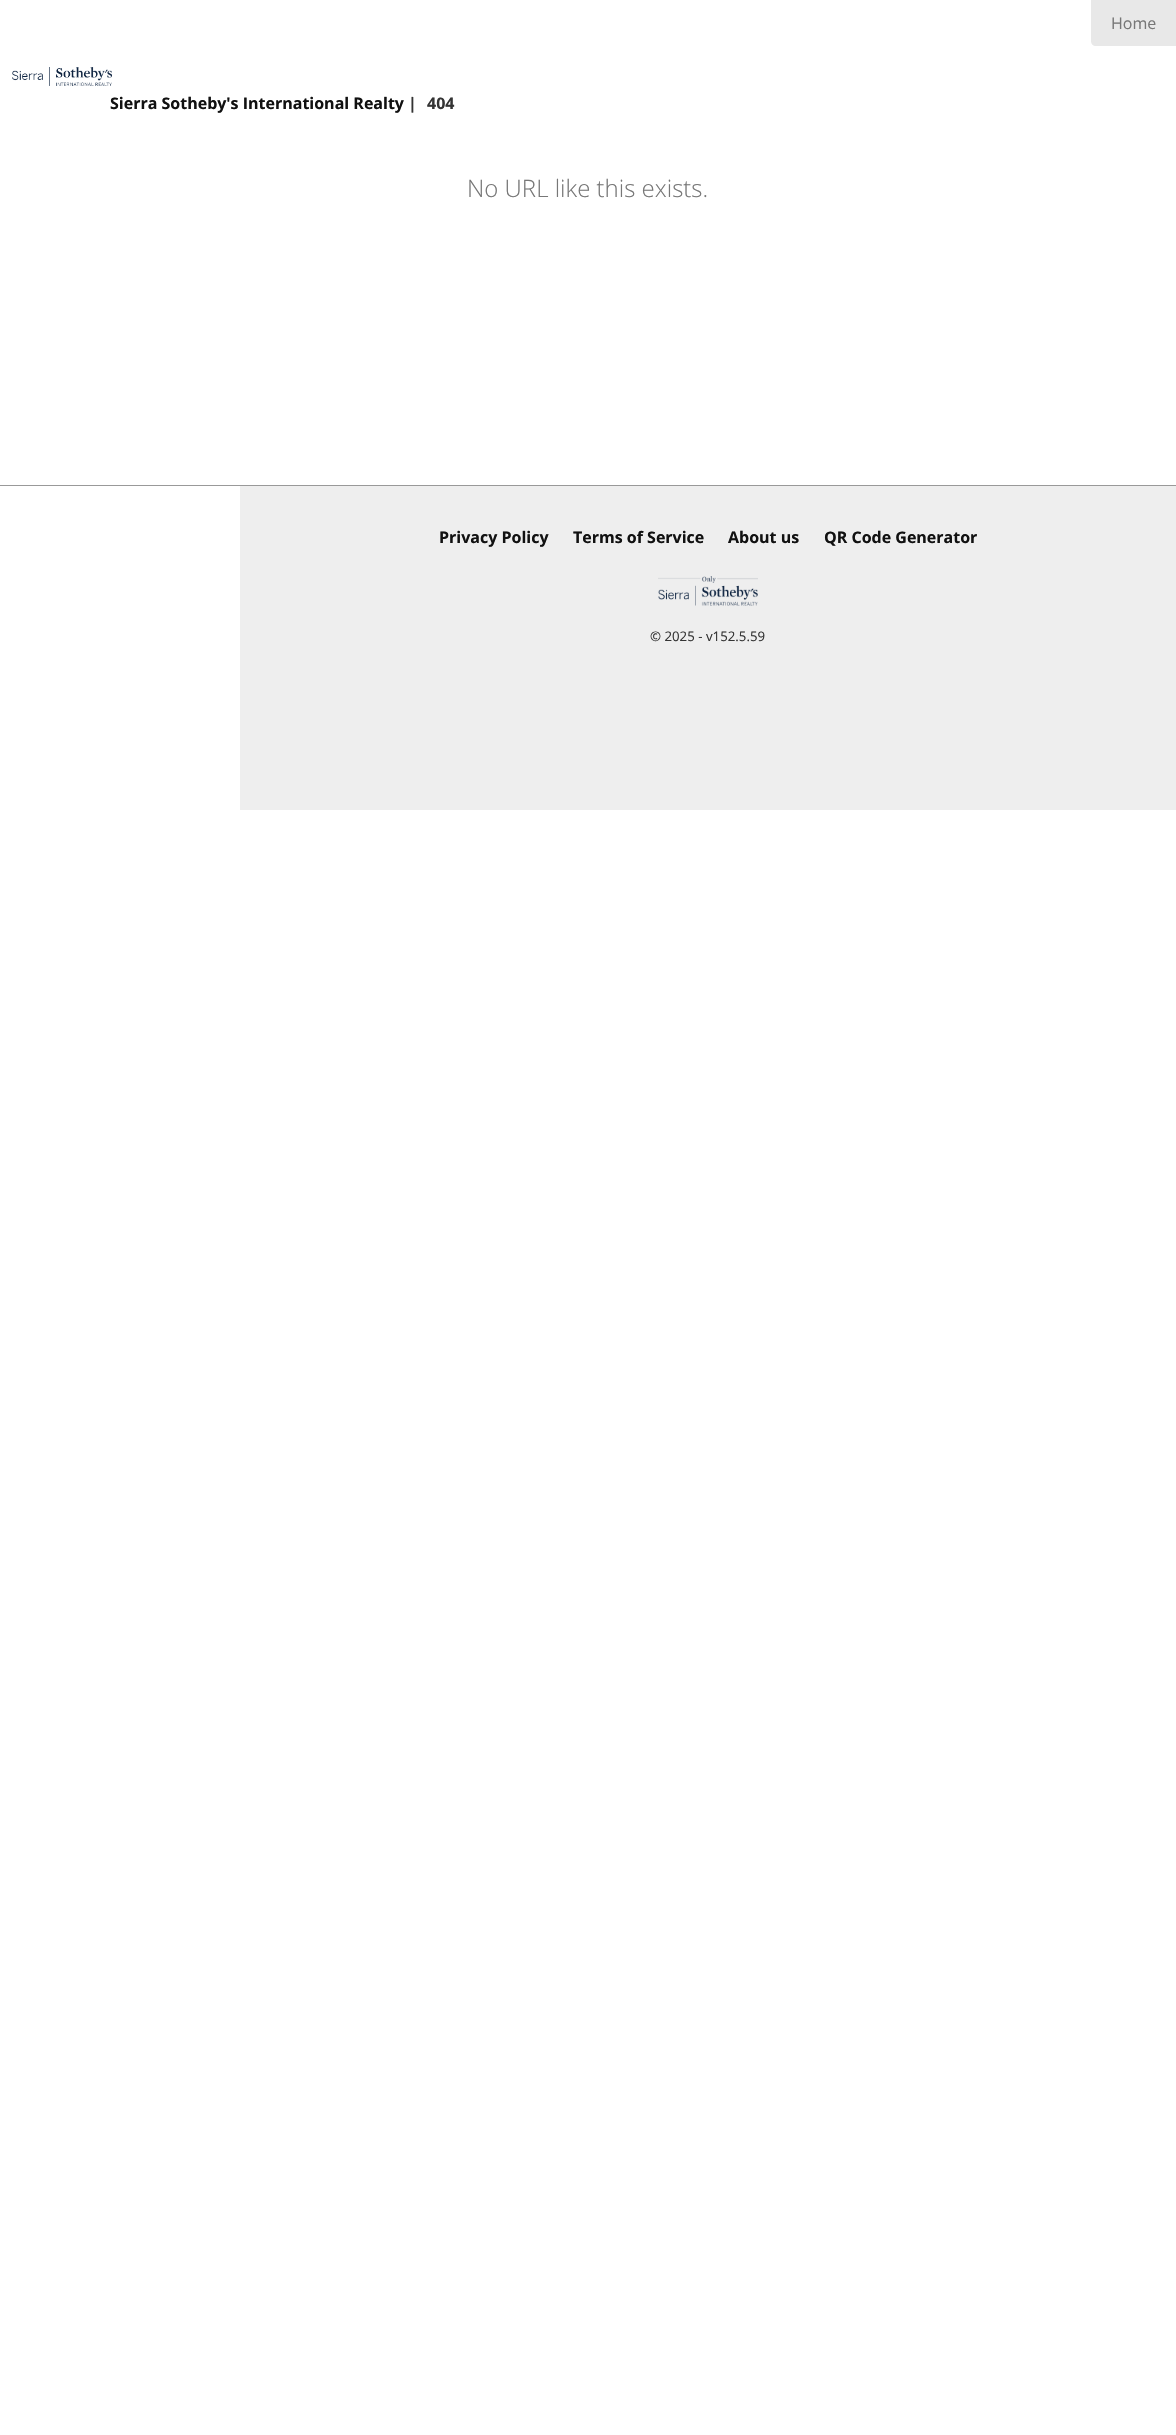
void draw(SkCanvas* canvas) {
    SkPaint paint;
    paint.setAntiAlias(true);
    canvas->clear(0xFFFFFFFF);
    paint.setColor(0xFFE8E8E8);
    canvas->drawPath(SkPathBuilder().moveTo(1091, 0).lineTo(1176, 0).lineTo(1176, 46).lineTo(1096, 46).cubicTo(1093, 46, 1091, 44, 1091, 41).close().detach(), paint);
    SkFont font1(fontMgr->matchFamilyStyle("Open Sans", SkFontStyle::Normal()), 16);
    font1.setSubpixel(true);
    paint.setColor(0xFF777777);
    canvas->drawString("Home", 1111, 29, font1, paint);
    canvas->drawImageRect(SkImages::DeferredFromEncodedData(SkData::MakeFromFileName("img1.png")), SkRect::MakeXYWH(12, 67, 100, 19), SkSamplingOptions());
    SkFont font2(fontMgr->matchFamilyStyle("Open Sans", SkFontStyle::Bold()), 16);
    font2.setSubpixel(true);
    paint.setColor(0xFF111111);
    canvas->drawString("Sierra Sotheby's International Realty", 110, 109, font2, paint);
    paint.setColor(0xFF343434);
    canvas->drawString("|", 408, 109, font2, paint);
    canvas->drawString("404", 427, 109, font2, paint);
    paint.setColor(0xFF999999);
    canvas->drawRect(SkRect::MakeXYWH(0, 485, 1176, 1), paint);
    SkFont font3(fontMgr->matchFamilyStyle("Open Sans", SkFontStyle(300, SkFontStyle::kNormal_Width, SkFontStyle::kUpright_Slant)), 24);
    font3.setSubpixel(true);
    paint.setColor(0xFF777777);
    canvas->drawString("No URL like this exists.", 467, 197, font3, paint);
    paint.setColor(0xFFEEEEEE);
    canvas->drawRect(SkRect::MakeXYWH(240, 486, 936, 324), paint);
    paint.setColor(0xFF111111);
    canvas->drawString("Privacy Policy", 439, 543, font2, paint);
    canvas->drawString("Terms of Service", 573, 543, font2, paint);
    canvas->drawString("About us", 728, 543, font2, paint);
    canvas->drawString("QR Code Generator", 824, 543, font2, paint);
    canvas->drawImageRect(SkImages::DeferredFromEncodedData(SkData::MakeFromFileName("img2.png")), SkRect::MakeXYWH(658, 576, 100, 30), SkSamplingOptions());
    SkFont font4(fontMgr->matchFamilyStyle("Open Sans", SkFontStyle::Normal()), 13.25f);
    font4.setSubpixel(true);
    paint.setColor(0xFF343434);
    canvas->drawString("© 2025 - v152.5.59", 650, 641, font4, paint);
}
